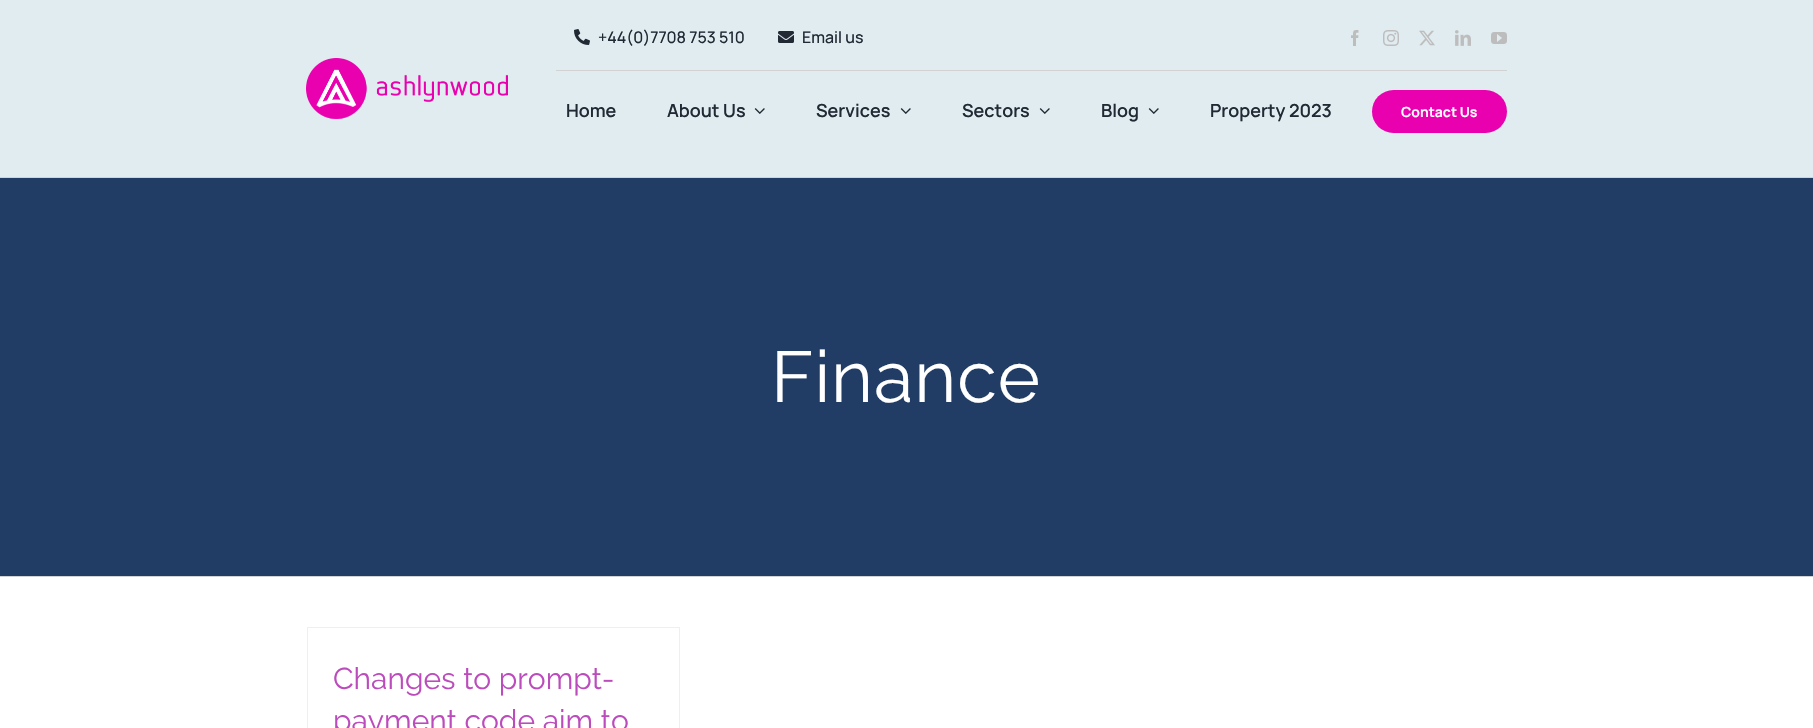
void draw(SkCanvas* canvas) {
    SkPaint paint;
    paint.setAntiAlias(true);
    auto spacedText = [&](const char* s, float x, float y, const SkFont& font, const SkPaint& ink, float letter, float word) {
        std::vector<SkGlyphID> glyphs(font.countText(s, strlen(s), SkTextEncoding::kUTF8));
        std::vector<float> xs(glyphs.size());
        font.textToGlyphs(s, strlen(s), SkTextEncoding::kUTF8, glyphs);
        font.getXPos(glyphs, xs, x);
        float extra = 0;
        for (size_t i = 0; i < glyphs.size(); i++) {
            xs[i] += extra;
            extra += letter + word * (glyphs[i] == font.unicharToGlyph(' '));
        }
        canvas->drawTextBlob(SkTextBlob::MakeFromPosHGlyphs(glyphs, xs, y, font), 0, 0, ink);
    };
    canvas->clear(0xFFFFFFFF);
    paint.setColor(0xFFE0ECF0);
    canvas->drawRect(SkRect::MakeXYWH(0, 0, 1813, 177), paint);
    canvas->drawImageRect(SkImages::DeferredFromEncodedData(SkData::MakeFromFileName("img1.png")), SkRect::MakeXYWH(306, 58, 202, 61), SkSamplingOptions());
    paint.setColor(0xFFD2D2D2);
    canvas->drawRect(SkRect::MakeXYWH(556, 70, 951, 1), paint);
    canvas->drawImageRect(SkImages::DeferredFromEncodedData(SkData::MakeFromFileName("img2.png")), SkRect::MakeXYWH(574, 29, 16, 16), SkSamplingOptions());
    SkFont font1(fontMgr->matchFamilyStyle("Manrope", SkFontStyle(500, SkFontStyle::kNormal_Width, SkFontStyle::kUpright_Slant)), 16);
    font1.setSubpixel(true);
    paint.setColor(0xFF212934);
    canvas->drawString("+44(0)7708 753 510", 598, 43, font1, paint);
    canvas->drawImageRect(SkImages::DeferredFromEncodedData(SkData::MakeFromFileName("img3.png")), SkRect::MakeXYWH(778, 31, 16, 12), SkSamplingOptions());
    canvas->drawString("Email us", 802, 43, font1, paint);
    canvas->drawImageRect(SkImages::DeferredFromEncodedData(SkData::MakeFromFileName("img4.png")), SkRect::MakeXYWH(1351, 30, 8, 16), SkSamplingOptions());
    canvas->drawImageRect(SkImages::DeferredFromEncodedData(SkData::MakeFromFileName("img5.png")), SkRect::MakeXYWH(1383, 30, 16, 16), SkSamplingOptions());
    canvas->drawImageRect(SkImages::DeferredFromEncodedData(SkData::MakeFromFileName("img6.png")), SkRect::MakeXYWH(1419, 30, 16, 16), SkSamplingOptions());
    canvas->drawImageRect(SkImages::DeferredFromEncodedData(SkData::MakeFromFileName("img7.png")), SkRect::MakeXYWH(1455, 30, 16, 16), SkSamplingOptions());
    canvas->drawImageRect(SkImages::DeferredFromEncodedData(SkData::MakeFromFileName("img8.png")), SkRect::MakeXYWH(1491, 32, 16, 12), SkSamplingOptions());
    SkFont font2(fontMgr->matchFamilyStyle("Manrope", SkFontStyle(600, SkFontStyle::kNormal_Width, SkFontStyle::kUpright_Slant)), 18);
    font2.setSubpixel(true);
    canvas->drawString("Home", 566, 117, font2, paint);
    canvas->drawString("About Us", 667, 117, font2, paint);
    canvas->drawImageRect(SkImages::DeferredFromEncodedData(SkData::MakeFromFileName("img9.png")), SkRect::MakeXYWH(754, 108, 11, 6), SkSamplingOptions());
    canvas->drawString("Services", 816, 117, font2, paint);
    canvas->drawImageRect(SkImages::DeferredFromEncodedData(SkData::MakeFromFileName("img9.png")), SkRect::MakeXYWH(900, 108, 11, 6), SkSamplingOptions());
    canvas->drawString("Sectors", 962, 117, font2, paint);
    canvas->drawImageRect(SkImages::DeferredFromEncodedData(SkData::MakeFromFileName("img9.png")), SkRect::MakeXYWH(1039, 108, 11, 6), SkSamplingOptions());
    canvas->drawString("Blog", 1101, 117, font2, paint);
    canvas->drawImageRect(SkImages::DeferredFromEncodedData(SkData::MakeFromFileName("img9.png")), SkRect::MakeXYWH(1148, 108, 11, 6), SkSamplingOptions());
    canvas->drawString("Property 2023", 1210, 117, font2, paint);
    paint.setColor(0xFFE900AF);
    canvas->drawRoundRect(SkRect::MakeXYWH(1372, 90, 135, 43), 21.5f, 21.5f, paint);
    SkFont font3(fontMgr->matchFamilyStyle("Manrope", SkFontStyle::Bold()), 14);
    font3.setSubpixel(true);
    paint.setColor(0xFFFFFFFF);
    canvas->drawString("Contact Us", 1401, 117, font3, paint);
    paint.setColor(0xFF213D65);
    canvas->drawRect(SkRect::MakeXYWH(0, 178, 1813, 398), paint);
    paint.setColor(0xFFD2D3D4);
    canvas->drawRect(SkRect::MakeXYWH(0, 177, 1813, 1), paint);
    canvas->drawRect(SkRect::MakeXYWH(0, 576, 1813, 1), paint);
    SkFont font4(fontMgr->matchFamilyStyle("Raleway", SkFontStyle::Normal()), 72);
    font4.setSubpixel(true);
    paint.setColor(0xFFFFFFFF);
    spacedText("Finance", 771, 402, font4, paint, 1, 0);
    paint.setColor(0xFFEFEFEF);
    canvas->drawRect(SkRect::MakeXYWH(307, 627, 373, 1), paint);
    canvas->drawRect(SkRect::MakeXYWH(679, 627, 1, 101), paint);
    canvas->drawRect(SkRect::MakeXYWH(307, 627, 1, 101), paint);
    SkFont font5(fontMgr->matchFamilyStyle("Raleway", SkFontStyle::Normal()), 30);
    font5.setSubpixel(true);
    paint.setColor(0xFFBC4BBC);
    canvas->drawString("Changes to prompt-", 333, 689, font5, paint);
    canvas->drawString("payment code aim to", 333, 731, font5, paint);
}
